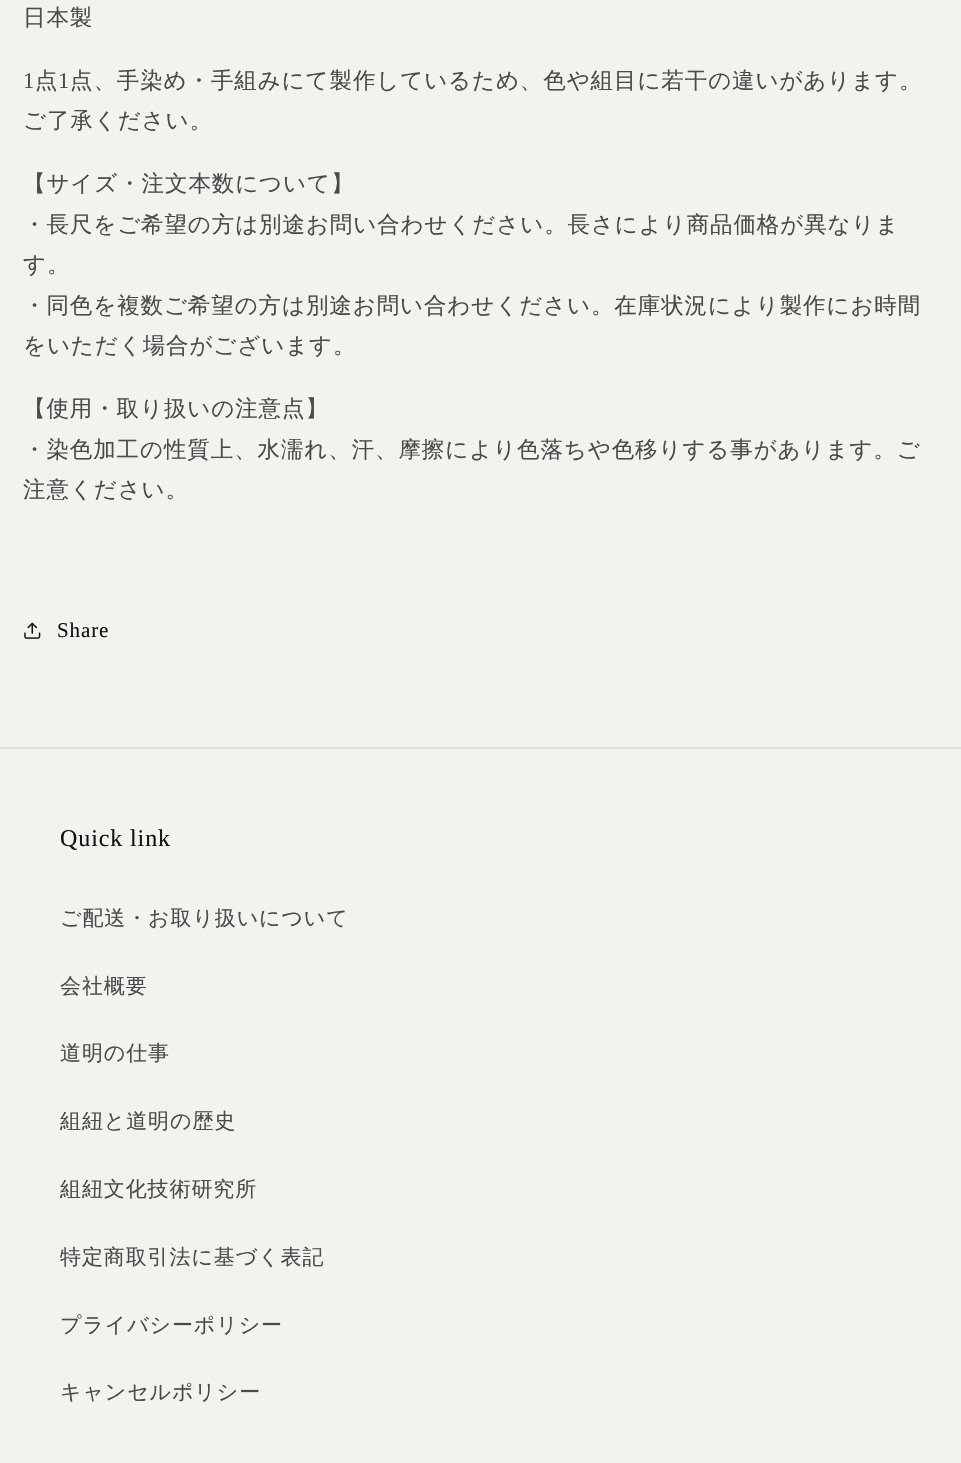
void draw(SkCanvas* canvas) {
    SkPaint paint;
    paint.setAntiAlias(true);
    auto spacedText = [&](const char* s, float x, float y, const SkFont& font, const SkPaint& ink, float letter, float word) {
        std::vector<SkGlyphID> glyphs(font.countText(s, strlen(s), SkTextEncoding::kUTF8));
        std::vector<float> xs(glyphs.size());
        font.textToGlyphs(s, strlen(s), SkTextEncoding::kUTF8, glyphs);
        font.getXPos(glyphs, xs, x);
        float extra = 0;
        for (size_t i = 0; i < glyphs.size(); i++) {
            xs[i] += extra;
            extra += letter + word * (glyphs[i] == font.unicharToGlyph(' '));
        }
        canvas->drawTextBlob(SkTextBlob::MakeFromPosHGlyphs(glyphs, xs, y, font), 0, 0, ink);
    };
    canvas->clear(0xFFF2F2EF);
    SkFont font1(fontMgr->matchFamilyStyle("WenQuanYi Zen Hei", SkFontStyle(500, SkFontStyle::kNormal_Width, SkFontStyle::kUpright_Slant)), 22.5f);
    font1.setSubpixel(true);
    paint.setColor(0xFF4A4A49);
    spacedText("日本製", 23, 25, font1, paint, 0.9f, 0);
    SkFont font2(fontMgr->matchFamilyStyle("Liberation Serif", SkFontStyle::Normal()), 22.5f);
    font2.setSubpixel(true);
    spacedText("1", 23, 88, font2, paint, 0.9f, 0);
    spacedText("点", 35, 88, font1, paint, 0.9f, 0);
    spacedText("1", 58, 88, font2, paint, 0.9f, 0);
    spacedText("点、手染め・手組みにて製作しているため、色や組目に若干の違いがあります。", 70, 88, font1, paint, 0.9f, 0);
    spacedText("ご了承ください。", 23, 128, font1, paint, 0.9f, 0);
    spacedText("【サイズ・注文本数について】", 23, 191, font1, paint, 0.9f, 0);
    spacedText("・長尺をご希望の方は別途お問い合わせください。長さにより商品価格が異なりま", 23, 232, font1, paint, 0.9f, 0);
    spacedText("す。", 23, 272, font1, paint, 0.9f, 0);
    spacedText("・同色を複数ご希望の方は別途お問い合わせください。在庫状況により製作にお時間", 23, 313, font1, paint, 0.9f, 0);
    spacedText("をいただく場合がございます。", 23, 353, font1, paint, 0.9f, 0);
    spacedText("【使用・取り扱いの注意点】", 23, 416, font1, paint, 0.9f, 0);
    spacedText("・染色加工の性質上、水濡れ、汗、摩擦により色落ちや色移りする事があります。ご", 23, 457, font1, paint, 0.9f, 0);
    spacedText("注意ください。", 23, 497, font1, paint, 0.9f, 0);
    canvas->drawImageRect(SkImages::DeferredFromEncodedData(SkData::MakeFromFileName("img1.png")), SkRect::MakeXYWH(24, 622, 17, 17), SkSamplingOptions());
    SkFont font3(fontMgr->matchFamilyStyle("Liberation Serif", SkFontStyle::Normal()), 21);
    font3.setSubpixel(true);
    paint.setColor(0xFF121212);
    spacedText("Share", 57, 637, font3, paint, 0.9f, 0);
    paint.setColor(0xFFE0E0DD);
    canvas->drawRect(SkRect::MakeXYWH(0, 747, 961, 2), paint);
    SkFont font4(fontMgr->matchFamilyStyle("Liberation Serif", SkFontStyle::Normal()), 24);
    font4.setSubpixel(true);
    paint.setColor(0xFF121212);
    spacedText("Quick link", 60, 846, font4, paint, 0.9f, 0);
    SkFont font5(fontMgr->matchFamilyStyle("WenQuanYi Zen Hei", SkFontStyle(500, SkFontStyle::kNormal_Width, SkFontStyle::kUpright_Slant)), 21);
    font5.setSubpixel(true);
    paint.setColor(0xFF4A4A49);
    spacedText("ご配送・お取り扱いについて", 60, 925, font5, paint, 0.9f, 0);
    spacedText("会社概要", 60, 993, font5, paint, 0.9f, 0);
    spacedText("道明の仕事", 60, 1060, font5, paint, 0.9f, 0);
    spacedText("組紐と道明の歴史", 60, 1128, font5, paint, 0.9f, 0);
    spacedText("組紐文化技術研究所", 60, 1196, font5, paint, 0.9f, 0);
    spacedText("特定商取引法に基づく表記", 60, 1264, font5, paint, 0.9f, 0);
    spacedText("プライバシーポリシー", 60, 1332, font5, paint, 0.9f, 0);
    spacedText("キャンセルポリシー", 60, 1399, font5, paint, 0.9f, 0);
}
